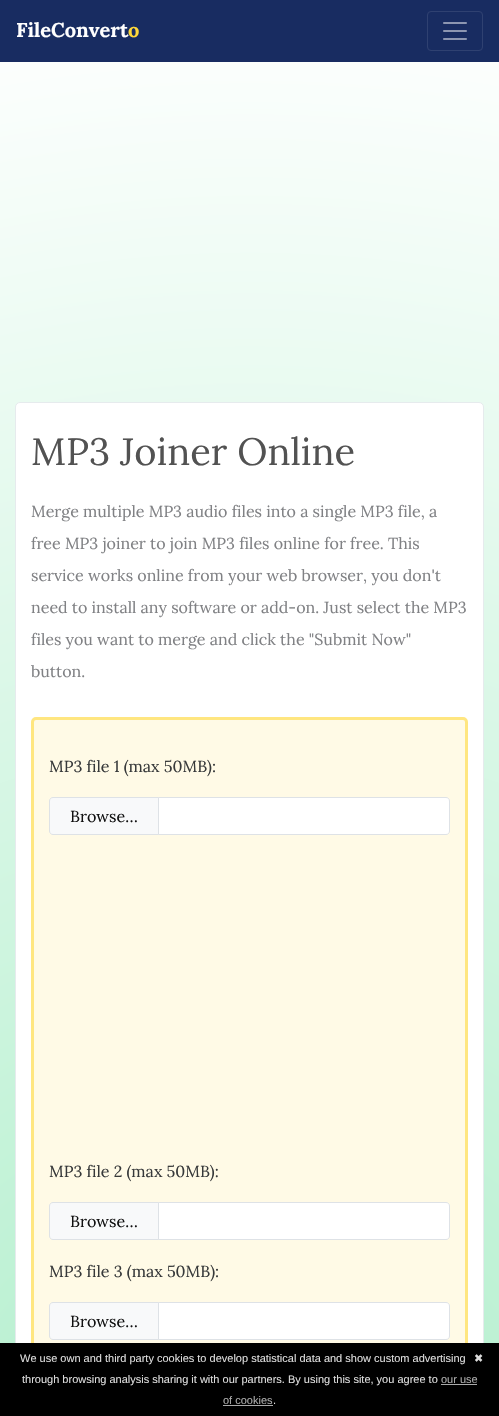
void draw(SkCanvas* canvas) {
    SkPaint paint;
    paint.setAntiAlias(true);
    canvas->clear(0xFFFFFFFF);
    {
        const SkColor colors[] = {0xFFAEEECA, 0xFFFFFFFF};
        const float stops[] = {0, 1};
        paint.setShader(SkGradientShader::MakeRadial({250, 1502}, 1522, colors, stops, 2, SkTileMode::kClamp));
        paint.setAlpha(255);
    }
    canvas->drawRect(SkRect::MakeXYWH(0, 62, 499, 1281), paint);
    paint.setShader(nullptr);
    paint.setColor(0xFF182C61);
    canvas->drawRect(SkRect::MakeXYWH(0, 0, 499, 62), paint);
    SkFont font1(fontMgr->matchFamilyStyle("Lora", SkFontStyle::Bold()), 20);
    font1.setSubpixel(true);
    paint.setColor(0xFFFFFFFF);
    canvas->drawString("FileConvert", 16, 37, font1, paint);
    paint.setColor(0xFFFFD83A);
    canvas->drawString("o", 128, 37, font1, paint);
    paint.setStyle(SkPaint::kStroke_Style);
    paint.setStrokeWidth(1);
    paint.setColor(0xFF2F4171);
    canvas->drawRoundRect(SkRect::MakeXYWH(427.5f, 11.5f, 55, 39), 3.5f, 3.5f, paint);
    canvas->drawImageRect(SkImages::DeferredFromEncodedData(SkData::MakeFromFileName("img1.png")), SkRect::MakeXYWH(443, 22, 24, 18), SkSamplingOptions());
    paint.setStyle(SkPaint::kFill_Style);
    paint.setColor(0xFFFFFFFF);
    canvas->drawRoundRect(SkRect::MakeXYWH(15.5f, 402.5f, 468, 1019), 4.5f, 4.5f, paint);
    paint.setStyle(SkPaint::kStroke_Style);
    paint.setColor(0xFFE6EBED);
    canvas->drawRoundRect(SkRect::MakeXYWH(15.5f, 402.5f, 468, 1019), 4.5f, 4.5f, paint);
    SkFont font2(fontMgr->matchFamilyStyle("Lora", SkFontStyle::Normal()), 38);
    font2.setSubpixel(true);
    paint.setStyle(SkPaint::kFill_Style);
    paint.setColor(0xFF525252);
    canvas->drawString("MP3 Joiner Online", 31, 465, font2, paint);
    SkFont font3(fontMgr->matchFamilyStyle("Lora", SkFontStyle::Normal()), 16);
    font3.setSubpixel(true);
    paint.setColor(0xFF808184);
    canvas->drawString("Merge multiple MP3 audio files into a single MP3 file, a", 31, 517, font3, paint);
    canvas->drawString("free MP3 joiner to join MP3 files online for free. This", 31, 549, font3, paint);
    canvas->drawString("service works online from your web browser, you don't", 31, 581, font3, paint);
    canvas->drawString("need to install any software or add-on. Just select the MP3", 31, 613, font3, paint);
    canvas->drawString("files you want to merge and click the \"Submit Now\"", 31, 645, font3, paint);
    canvas->drawString("button.", 31, 677, font3, paint);
    paint.setColor(0xFFFFFAE6);
    canvas->drawRoundRect(SkRect::MakeXYWH(32.5f, 718.5f, 434, 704), 3.5f, 3.5f, paint);
    paint.setStyle(SkPaint::kStroke_Style);
    paint.setStrokeWidth(3);
    paint.setColor(0xFFFFE680);
    canvas->drawRoundRect(SkRect::MakeXYWH(32.5f, 718.5f, 434, 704), 3.5f, 3.5f, paint);
    paint.setStyle(SkPaint::kFill_Style);
    paint.setColor(0xFF37393A);
    canvas->drawString("MP3 file 1 (max 50MB):", 49, 772, font3, paint);
    paint.setColor(0xFFF8F9FA);
    canvas->drawPath(SkPathBuilder().moveTo(53, 797.5f).lineTo(158.5f, 797.5f).lineTo(158.5f, 834.5f).lineTo(53, 834.5f).cubicTo(51, 834.5f, 49.5f, 833, 49.5f, 831).lineTo(49.5f, 801).cubicTo(49.5f, 799, 51, 797.5f, 53, 797.5f).close().detach(), paint);
    paint.setStyle(SkPaint::kStroke_Style);
    paint.setStrokeWidth(1);
    paint.setColor(0xFFDEE2E6);
    canvas->drawPath(SkPathBuilder().moveTo(53, 797.5f).lineTo(158.5f, 797.5f).lineTo(158.5f, 834.5f).lineTo(53, 834.5f).cubicTo(51, 834.5f, 49.5f, 833, 49.5f, 831).lineTo(49.5f, 801).cubicTo(49.5f, 799, 51, 797.5f, 53, 797.5f).close().detach(), paint);
    paint.setStyle(SkPaint::kFill_Style);
    paint.setColor(0xFF111111);
    canvas->drawString("Browse…", 70, 822, font3, paint);
    paint.setColor(0xFFFFFFFF);
    canvas->drawPath(SkPathBuilder().moveTo(158.5f, 797.5f).lineTo(446, 797.5f).cubicTo(448, 797.5f, 449.5f, 799, 449.5f, 801).lineTo(449.5f, 831).cubicTo(449.5f, 833, 448, 834.5f, 446, 834.5f).lineTo(158.5f, 834.5f).close().detach(), paint);
    paint.setStyle(SkPaint::kStroke_Style);
    paint.setColor(0xFFDEE2E6);
    canvas->drawPath(SkPathBuilder().moveTo(158.5f, 797.5f).lineTo(446, 797.5f).cubicTo(448, 797.5f, 449.5f, 799, 449.5f, 801).lineTo(449.5f, 831).cubicTo(449.5f, 833, 448, 834.5f, 446, 834.5f).lineTo(158.5f, 834.5f).close().detach(), paint);
    paint.setStyle(SkPaint::kFill_Style);
    paint.setColor(0xFF37393A);
    canvas->drawString("MP3 file 2 (max 50MB):", 49, 1177, font3, paint);
    paint.setColor(0xFFF8F9FA);
    canvas->drawPath(SkPathBuilder().moveTo(53, 1202.5f).lineTo(158.5f, 1202.5f).lineTo(158.5f, 1239.5f).lineTo(53, 1239.5f).cubicTo(51, 1239.5f, 49.5f, 1238, 49.5f, 1236).lineTo(49.5f, 1206).cubicTo(49.5f, 1204, 51, 1202.5f, 53, 1202.5f).close().detach(), paint);
    paint.setStyle(SkPaint::kStroke_Style);
    paint.setColor(0xFFDEE2E6);
    canvas->drawPath(SkPathBuilder().moveTo(53, 1202.5f).lineTo(158.5f, 1202.5f).lineTo(158.5f, 1239.5f).lineTo(53, 1239.5f).cubicTo(51, 1239.5f, 49.5f, 1238, 49.5f, 1236).lineTo(49.5f, 1206).cubicTo(49.5f, 1204, 51, 1202.5f, 53, 1202.5f).close().detach(), paint);
    paint.setStyle(SkPaint::kFill_Style);
    paint.setColor(0xFF111111);
    canvas->drawString("Browse…", 70, 1227, font3, paint);
    paint.setColor(0xFFFFFFFF);
    canvas->drawPath(SkPathBuilder().moveTo(158.5f, 1202.5f).lineTo(446, 1202.5f).cubicTo(448, 1202.5f, 449.5f, 1204, 449.5f, 1206).lineTo(449.5f, 1236).cubicTo(449.5f, 1238, 448, 1239.5f, 446, 1239.5f).lineTo(158.5f, 1239.5f).close().detach(), paint);
    paint.setStyle(SkPaint::kStroke_Style);
    paint.setColor(0xFFDEE2E6);
    canvas->drawPath(SkPathBuilder().moveTo(158.5f, 1202.5f).lineTo(446, 1202.5f).cubicTo(448, 1202.5f, 449.5f, 1204, 449.5f, 1206).lineTo(449.5f, 1236).cubicTo(449.5f, 1238, 448, 1239.5f, 446, 1239.5f).lineTo(158.5f, 1239.5f).close().detach(), paint);
    paint.setStyle(SkPaint::kFill_Style);
    paint.setColor(0xFF37393A);
    canvas->drawString("MP3 file 3 (max 50MB):", 49, 1277, font3, paint);
    paint.setColor(0xFFF8F9FA);
    canvas->drawPath(SkPathBuilder().moveTo(53, 1302.5f).lineTo(158.5f, 1302.5f).lineTo(158.5f, 1339.5f).lineTo(53, 1339.5f).cubicTo(51, 1339.5f, 49.5f, 1338, 49.5f, 1336).lineTo(49.5f, 1306).cubicTo(49.5f, 1304, 51, 1302.5f, 53, 1302.5f).close().detach(), paint);
    paint.setStyle(SkPaint::kStroke_Style);
    paint.setColor(0xFFDEE2E6);
    canvas->drawPath(SkPathBuilder().moveTo(53, 1302.5f).lineTo(158.5f, 1302.5f).lineTo(158.5f, 1339.5f).lineTo(53, 1339.5f).cubicTo(51, 1339.5f, 49.5f, 1338, 49.5f, 1336).lineTo(49.5f, 1306).cubicTo(49.5f, 1304, 51, 1302.5f, 53, 1302.5f).close().detach(), paint);
    paint.setStyle(SkPaint::kFill_Style);
    paint.setColor(0xFF111111);
    canvas->drawString("Browse…", 70, 1327, font3, paint);
    paint.setColor(0xFFFFFFFF);
    canvas->drawPath(SkPathBuilder().moveTo(158.5f, 1302.5f).lineTo(446, 1302.5f).cubicTo(448, 1302.5f, 449.5f, 1304, 449.5f, 1306).lineTo(449.5f, 1336).cubicTo(449.5f, 1338, 448, 1339.5f, 446, 1339.5f).lineTo(158.5f, 1339.5f).close().detach(), paint);
    paint.setStyle(SkPaint::kStroke_Style);
    paint.setColor(0xFFDEE2E6);
    canvas->drawPath(SkPathBuilder().moveTo(158.5f, 1302.5f).lineTo(446, 1302.5f).cubicTo(448, 1302.5f, 449.5f, 1304, 449.5f, 1306).lineTo(449.5f, 1336).cubicTo(449.5f, 1338, 448, 1339.5f, 446, 1339.5f).lineTo(158.5f, 1339.5f).close().detach(), paint);
    paint.setStyle(SkPaint::kFill_Style);
    paint.setColor(0xFF000000);
    canvas->drawRect(SkRect::MakeXYWH(0, 1343, 499, 73), paint);
    SkFont font4(fontMgr->matchFamilyStyle("Liberation Sans", SkFontStyle::Normal()), 11);
    font4.setSubpixel(true);
    paint.setColor(0xFFDDDDDD);
    canvas->drawString("We use own and third party cookies to develop statistical data and show custom advertising", 20, 1362, font4, paint);
    SkFont font5(fontMgr->matchFamilyStyle("DejaVu Sans", SkFontStyle::Normal()), 11);
    font5.setSubpixel(true);
    canvas->drawString("✖", 474, 1362, font5, paint);
    canvas->drawString("through browsing analysis sharing it with our partners. By using this site, you agree to", 22, 1383, font4, paint);
    paint.setColor(0xFFAAAAAA);
    canvas->drawString("our use", 441, 1383, font4, paint);
    canvas->drawRect(SkRect::MakeXYWH(441, 1384, 36, 1), paint);
    canvas->drawString("of cookies", 223, 1404, font4, paint);
    paint.setColor(0xFFDDDDDD);
    canvas->drawString(".", 273, 1404, font4, paint);
    paint.setColor(0xFFAAAAAA);
    canvas->drawRect(SkRect::MakeXYWH(223, 1405, 50, 1), paint);
}
